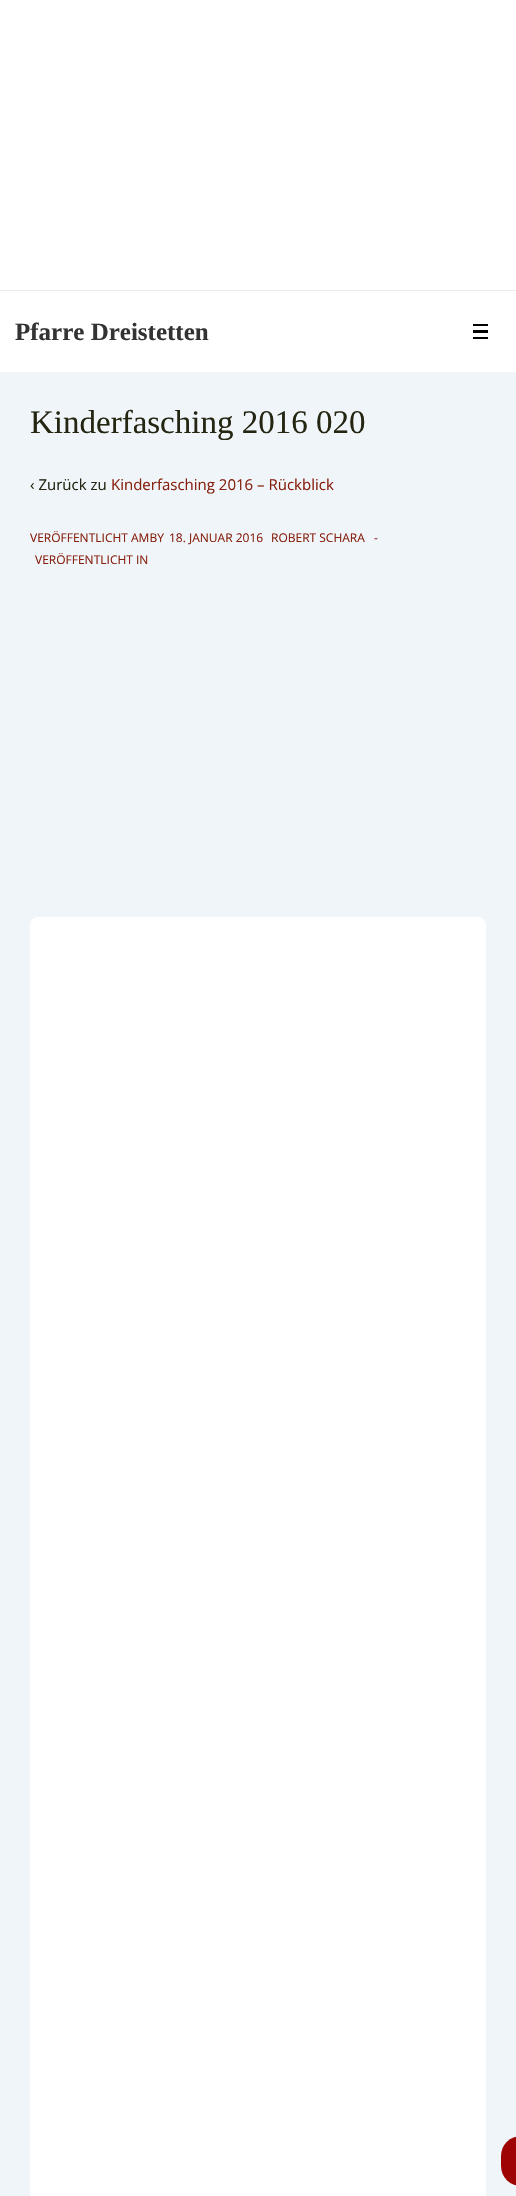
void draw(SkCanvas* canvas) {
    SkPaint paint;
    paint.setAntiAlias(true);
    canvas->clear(0xFFF0F5FA);
    paint.setColor(0xFFFFFFFF);
    canvas->drawRect(SkRect::MakeXYWH(0, 0, 516, 290), paint);
    paint.setColor(0xFFEAEAEA);
    canvas->drawRect(SkRect::MakeXYWH(0, 290, 516, 1), paint);
    paint.setColor(0xFFFFFFFF);
    canvas->drawRect(SkRect::MakeXYWH(0, 291, 516, 81), paint);
    SkFont font1(fontMgr->matchFamilyStyle("Liberation Serif", SkFontStyle::Bold()), 25);
    font1.setSubpixel(true);
    paint.setColor(0xFF333333);
    canvas->drawString("Pfarre Dreistetten", 15, 340, font1, paint);
    paint.setColor(0xFF000000);
    canvas->drawRect(SkRect::MakeXYWH(473, 324, 15, 2), paint);
    canvas->drawRect(SkRect::MakeXYWH(473, 330, 15, 3), paint);
    canvas->drawRect(SkRect::MakeXYWH(473, 337, 15, 2), paint);
    SkFont font2(fontMgr->matchFamilyStyle("Liberation Serif", SkFontStyle::Normal()), 33);
    font2.setSubpixel(true);
    paint.setColor(0xFF242611);
    canvas->drawString("Kinderfasching 2016 020", 30, 433, font2, paint);
    SkFont font3(fontMgr->matchFamilyStyle("Open Sans", SkFontStyle::Normal()), 15);
    font3.setSubpixel(true);
    canvas->drawString("‹ Zurück zu", 30, 490, font3, paint);
    paint.setColor(0xFF87200E);
    canvas->drawString("Kinderfasching 2016 – Rückblick", 111, 490, font3, paint);
    SkFont font4(fontMgr->matchFamilyStyle("Open Sans", SkFontStyle::Normal()), 12);
    font4.setSubpixel(true);
    canvas->drawString("VERÖFFENTLICHT AMBY", 30, 542, font4, paint);
    canvas->drawString("18. JANUAR 2016", 169, 542, font4, paint);
    canvas->drawString("ROBERT SCHARA", 271, 542, font4, paint);
    canvas->drawString("-", 374, 542, font4, paint);
    canvas->drawString("VERÖFFENTLICHT IN", 35, 564, font4, paint);
    paint.setColor(0xFFFFFFFF);
    canvas->drawRoundRect(SkRect::MakeXYWH(30, 917, 456, 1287), 8, 8, paint);
    paint.setColor(0xFF9F0404);
    canvas->drawRoundRect(SkRect::MakeXYWH(501, 2136, 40, 50), 25, 25, paint);
}
